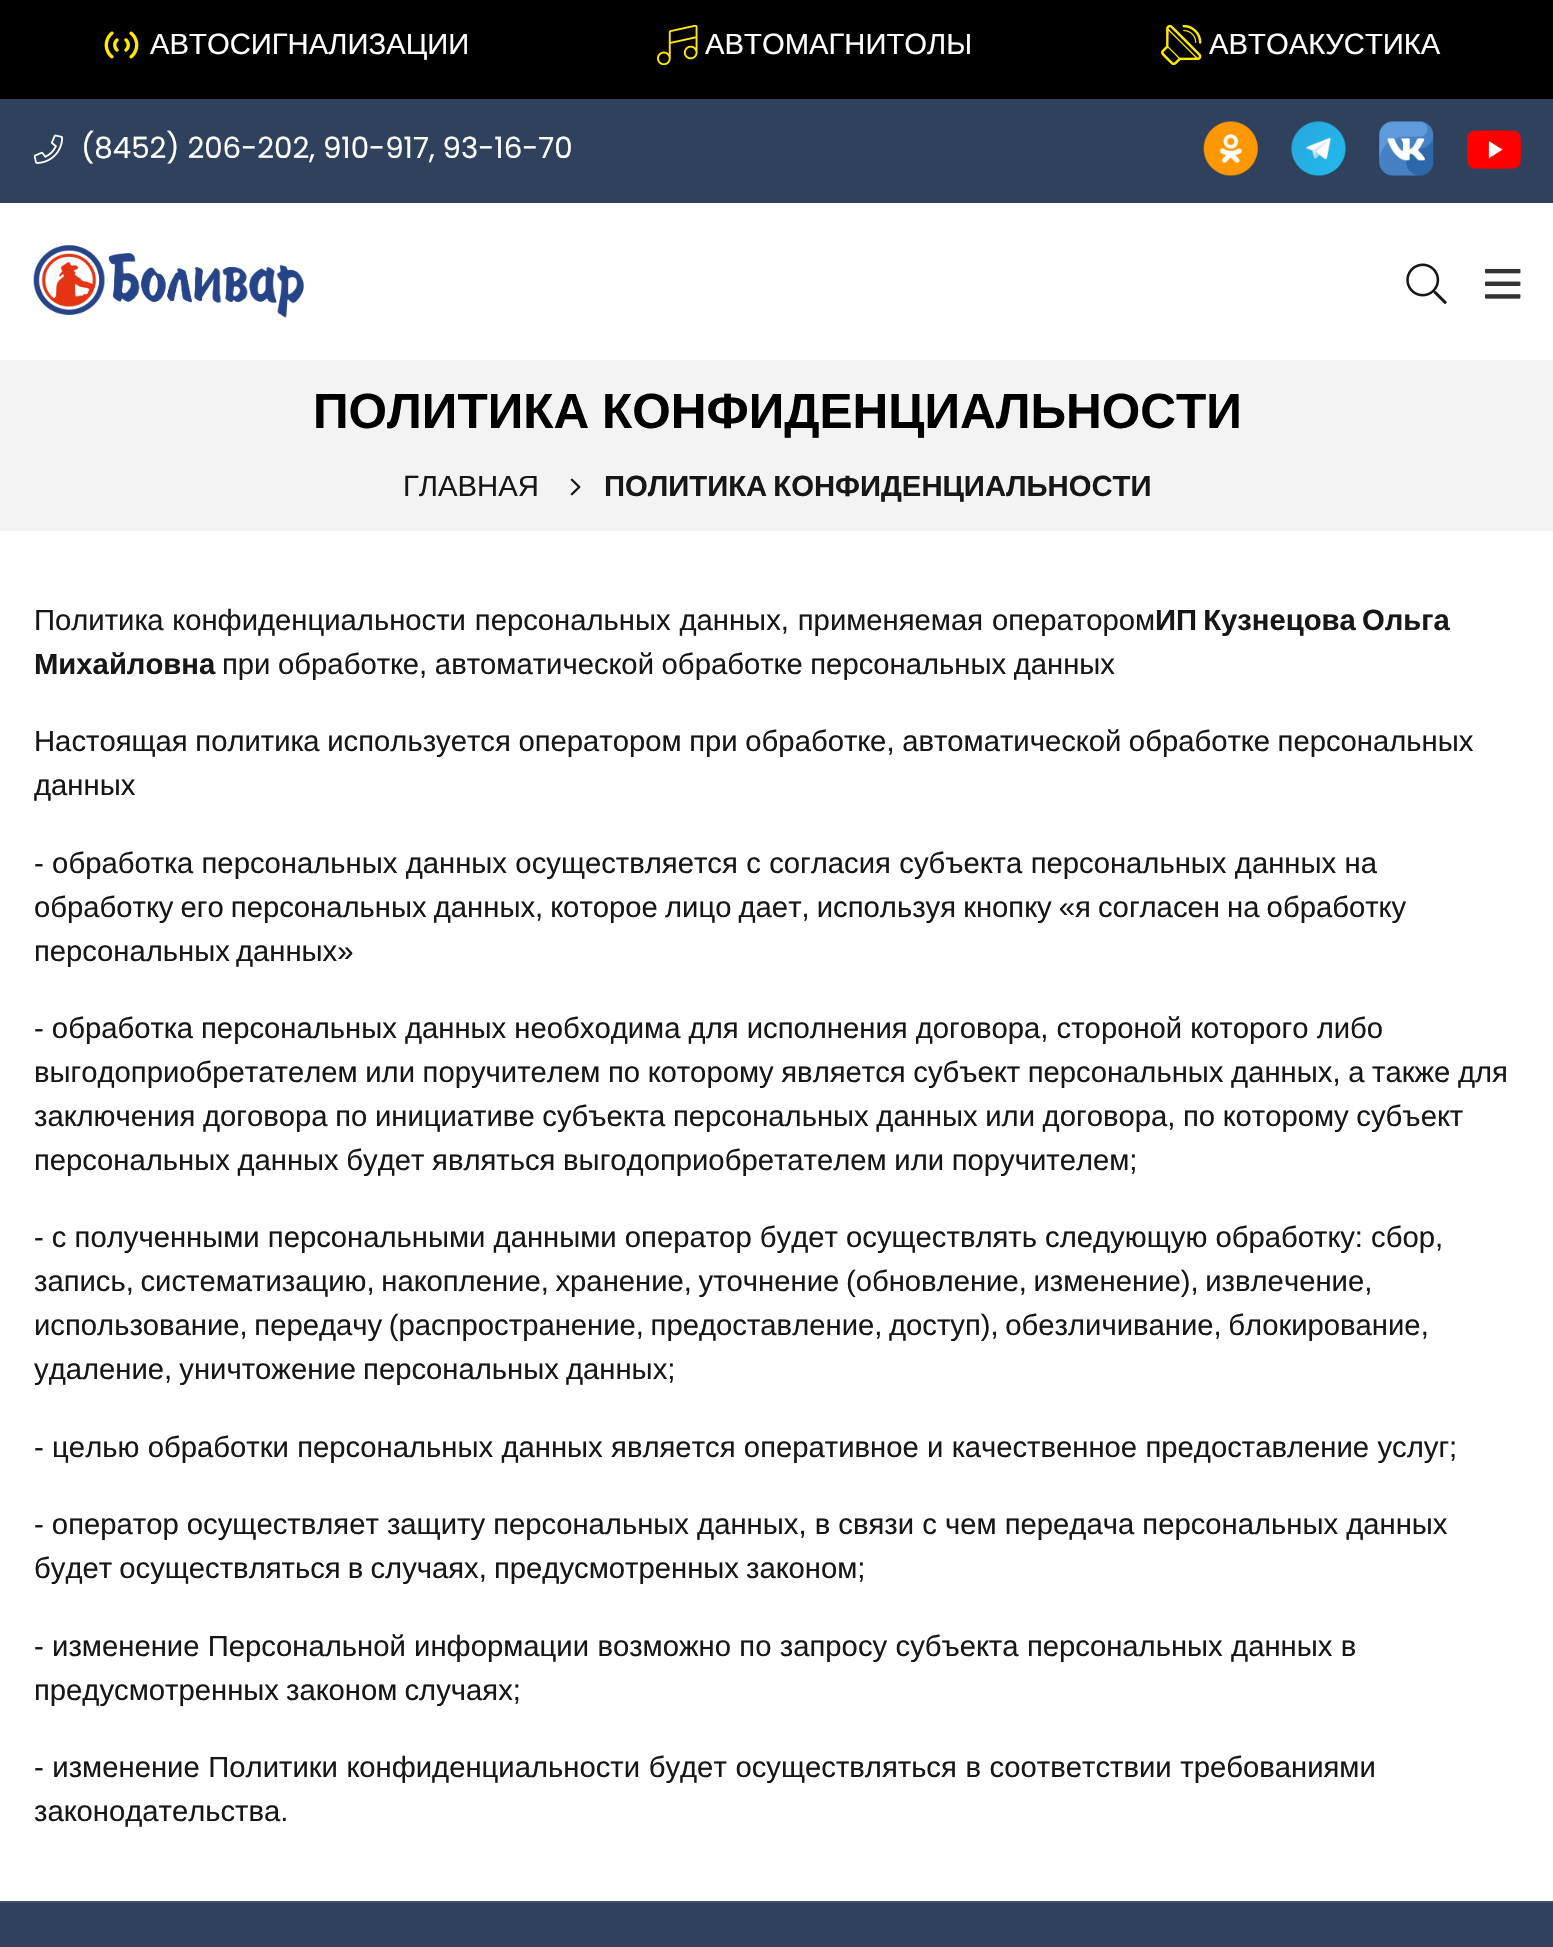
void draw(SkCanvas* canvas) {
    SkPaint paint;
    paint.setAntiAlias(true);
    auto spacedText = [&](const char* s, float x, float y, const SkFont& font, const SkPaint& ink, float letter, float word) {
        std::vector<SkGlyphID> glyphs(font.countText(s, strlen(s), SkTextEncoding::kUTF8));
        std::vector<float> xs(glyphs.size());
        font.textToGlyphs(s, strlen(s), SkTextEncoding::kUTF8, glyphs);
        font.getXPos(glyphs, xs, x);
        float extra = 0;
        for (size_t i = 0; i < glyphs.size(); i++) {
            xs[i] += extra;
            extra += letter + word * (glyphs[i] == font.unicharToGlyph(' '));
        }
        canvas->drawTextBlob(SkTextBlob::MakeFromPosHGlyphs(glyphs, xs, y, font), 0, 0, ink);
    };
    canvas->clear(0xFFFFFFFF);
    paint.setColor(0xFF000000);
    canvas->drawRect(SkRect::MakeXYWH(0, 0, 1553, 99), paint);
    canvas->drawImageRect(SkImages::DeferredFromEncodedData(SkData::MakeFromFileName("img1.png")), SkRect::MakeXYWH(104, 31, 35, 28), SkSamplingOptions());
    SkFont font1(fontMgr->matchFamilyStyle("Liberation Sans", SkFontStyle::Normal()), 29.25f);
    font1.setSubpixel(true);
    paint.setColor(0xFFFFFFFF);
    canvas->drawString("АВТОСИГНАЛИЗАЦИИ", 150, 54, font1, paint);
    canvas->drawImageRect(SkImages::DeferredFromEncodedData(SkData::MakeFromFileName("img2.png")), SkRect::MakeXYWH(657, 25, 41, 40), SkSamplingOptions());
    canvas->drawString("АВТОМАГНИТОЛЫ", 705, 54, font1, paint);
    canvas->drawImageRect(SkImages::DeferredFromEncodedData(SkData::MakeFromFileName("img3.png")), SkRect::MakeXYWH(1161, 25, 41, 40), SkSamplingOptions());
    canvas->drawString("АВТОАКУСТИКА", 1209, 54, font1, paint);
    paint.setColor(0xFF2F415D);
    canvas->drawRect(SkRect::MakeXYWH(0, 99, 1553, 104), paint);
    canvas->drawImageRect(SkImages::DeferredFromEncodedData(SkData::MakeFromFileName("img4.png")), SkRect::MakeXYWH(33, 134, 30, 30), SkSamplingOptions());
    SkFont font2(fontMgr->matchFamilyStyle("Poppins", SkFontStyle::Normal()), 29.25f);
    font2.setSubpixel(true);
    paint.setColor(0xFFFFFFFF);
    canvas->drawString("(8452) 206-202, 910-917, 93-16-70", 81, 158, font2, paint);
    canvas->drawImageRect(SkImages::DeferredFromEncodedData(SkData::MakeFromFileName("img5.png")), SkRect::MakeXYWH(1203, 121, 55, 55), SkSamplingOptions());
    canvas->drawImageRect(SkImages::DeferredFromEncodedData(SkData::MakeFromFileName("img6.png")), SkRect::MakeXYWH(1291, 121, 55, 55), SkSamplingOptions());
    canvas->drawImageRect(SkImages::DeferredFromEncodedData(SkData::MakeFromFileName("img7.png")), SkRect::MakeXYWH(1379, 121, 55, 55), SkSamplingOptions());
    canvas->drawImageRect(SkImages::DeferredFromEncodedData(SkData::MakeFromFileName("img8.png")), SkRect::MakeXYWH(1467, 130, 54, 39), SkSamplingOptions());
    canvas->drawImageRect(SkImages::DeferredFromEncodedData(SkData::MakeFromFileName("img9.png")), SkRect::MakeXYWH(33, 245, 271, 73), SkSamplingOptions());
    canvas->drawImageRect(SkImages::DeferredFromEncodedData(SkData::MakeFromFileName("img10.png")), SkRect::MakeXYWH(1406, 263, 41, 41), SkSamplingOptions());
    canvas->drawImageRect(SkImages::DeferredFromEncodedData(SkData::MakeFromFileName("img11.png")), SkRect::MakeXYWH(1485, 268, 36, 31), SkSamplingOptions());
    paint.setColor(0xFFF3F3F3);
    canvas->drawRect(SkRect::MakeXYWH(0, 360, 1553, 171), paint);
    SkFont font3(fontMgr->matchFamilyStyle("Liberation Sans", SkFontStyle::Bold()), 49.5f);
    font3.setSubpixel(true);
    paint.setColor(0xFF000000);
    spacedText("ПОЛИТИКА КОНФИДЕНЦИАЛЬНОСТИ", 313, 428, font3, paint, 0, -1);
    paint.setColor(0xFF171717);
    canvas->drawString("ГЛАВНАЯ", 403, 496, font1, paint);
    canvas->drawImageRect(SkImages::DeferredFromEncodedData(SkData::MakeFromFileName("img12.png")), SkRect::MakeXYWH(570, 478, 11, 18), SkSamplingOptions());
    SkFont font4(fontMgr->matchFamilyStyle("Liberation Sans", SkFontStyle::Bold()), 29.25f);
    font4.setSubpixel(true);
    spacedText("ПОЛИТИКА КОНФИДЕНЦИАЛЬНОСТИ", 604, 496, font4, paint, 0, -2);
    spacedText("Политика конфиденциальности персональных данных, применяемая оператором", 34, 630, font1, paint, 0, 0.75f);
    spacedText("ИП Кузнецова Ольга", 1155, 630, font4, paint, 0, -2);
    canvas->drawString("Михайловна", 34, 674, font4, paint);
    spacedText("при обработке, автоматической обработке персональных данных", 222, 674, font1, paint, 0, -0.5f);
    spacedText("Настоящая политика используется оператором при обработке, автоматической обработке персональных", 34, 751, font1, paint, 0, -0.5f);
    canvas->drawString("данных", 34, 795, font1, paint);
    spacedText("- обработка персональных данных осуществляется с согласия субъекта персональных данных на", 34, 873, font1, paint, 0, 0.25f);
    spacedText("обработку его персональных данных, которое лицо дает, используя кнопку «я согласен на обработку", 34, 917, font1, paint, 0, -1);
    spacedText("персональных данных»", 34, 961, font1, paint, 0, -2);
    canvas->drawString("- обработка персональных данных необходима для исполнения договора, стороной которого либо", 34, 1038, font1, paint);
    spacedText("выгодоприобретателем или поручителем по которому является субъект персональных данных, а также для", 34, 1082, font1, paint, 0, -0.5f);
    spacedText("заключения договора по инициативе субъекта персональных данных или договора, по которому субъект", 34, 1126, font1, paint, 0, -0.5f);
    spacedText("персональных данных будет являться выгодоприобретателем или поручителем;", 34, 1170, font1, paint, 0, -0.5f);
    canvas->drawString("- с полученными персональными данными оператор будет осуществлять следующую обработку: сбор,", 34, 1247, font1, paint);
    spacedText("запись, систематизацию, накопление, хранение, уточнение (обновление, изменение), извлечение,", 34, 1291, font1, paint, 0, -1.5f);
    spacedText("использование, передачу (распространение, предоставление, доступ), обезличивание, блокирование,", 34, 1335, font1, paint, 0, -1.5f);
    spacedText("удаление, уничтожение персональных данных;", 34, 1379, font1, paint, 0, -1);
    spacedText("- целью обработки персональных данных является оперативное и качественное предоставление услуг;", 34, 1457, font1, paint, 0, 0.25f);
    canvas->drawString("- оператор осуществляет защиту персональных данных, в связи с чем передача персональных данных", 34, 1534, font1, paint);
    spacedText("будет осуществляться в случаях, предусмотренных законом;", 34, 1578, font1, paint, 0, -1);
    spacedText("- изменение Персональной информации возможно по запросу субъекта персональных данных в", 34, 1656, font1, paint, 0, 0.25f);
    spacedText("предусмотренных законом случаях;", 34, 1700, font1, paint, 0, -1);
    spacedText("- изменение Политики конфиденциальности будет осуществляться в соответствии требованиями", 34, 1777, font1, paint, 0, 0.5f);
    canvas->drawString("законодательства.", 34, 1821, font1, paint);
    paint.setColor(0xFF2F415D);
    canvas->drawRect(SkRect::MakeXYWH(0, 1903, 1553, 44), paint);
    paint.setColor(0xFF40516D);
    canvas->drawRect(SkRect::MakeXYWH(0, 1901, 1553, 2), paint);
}
